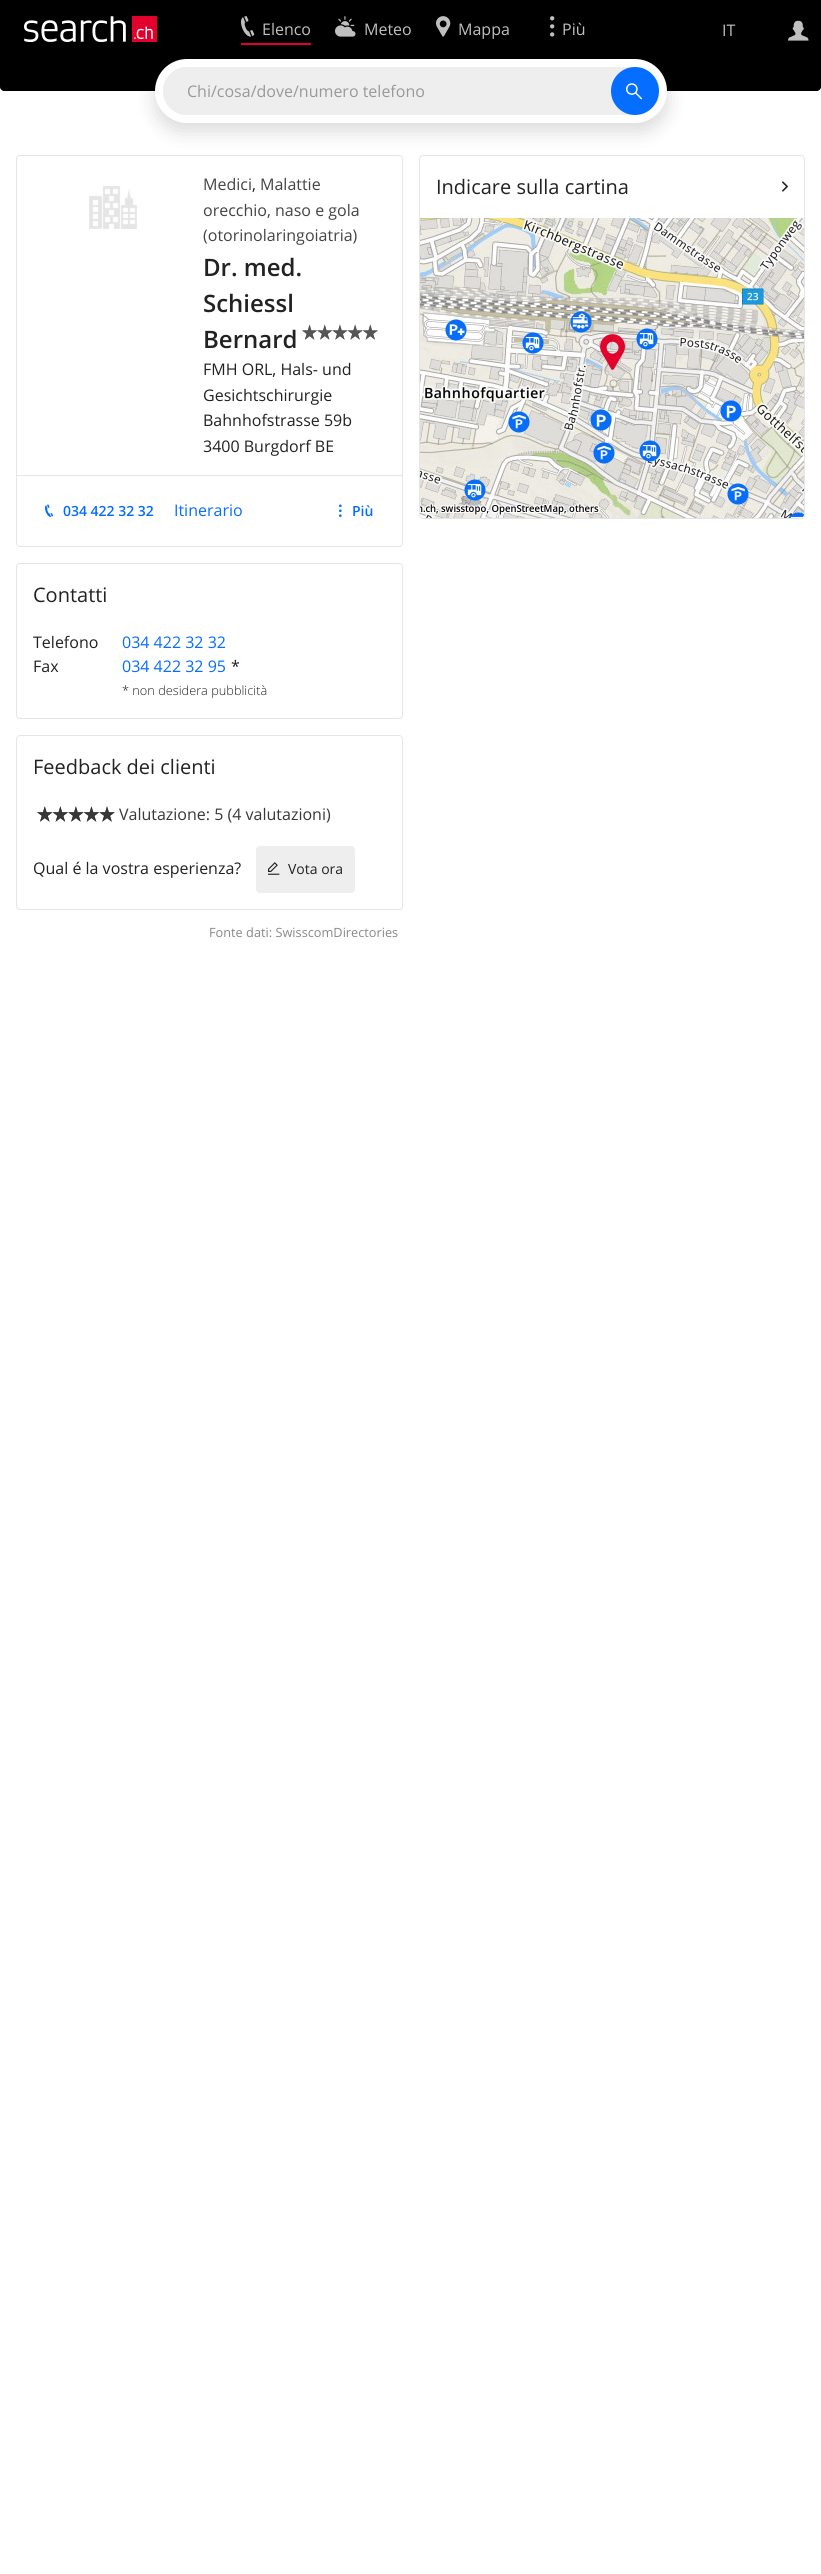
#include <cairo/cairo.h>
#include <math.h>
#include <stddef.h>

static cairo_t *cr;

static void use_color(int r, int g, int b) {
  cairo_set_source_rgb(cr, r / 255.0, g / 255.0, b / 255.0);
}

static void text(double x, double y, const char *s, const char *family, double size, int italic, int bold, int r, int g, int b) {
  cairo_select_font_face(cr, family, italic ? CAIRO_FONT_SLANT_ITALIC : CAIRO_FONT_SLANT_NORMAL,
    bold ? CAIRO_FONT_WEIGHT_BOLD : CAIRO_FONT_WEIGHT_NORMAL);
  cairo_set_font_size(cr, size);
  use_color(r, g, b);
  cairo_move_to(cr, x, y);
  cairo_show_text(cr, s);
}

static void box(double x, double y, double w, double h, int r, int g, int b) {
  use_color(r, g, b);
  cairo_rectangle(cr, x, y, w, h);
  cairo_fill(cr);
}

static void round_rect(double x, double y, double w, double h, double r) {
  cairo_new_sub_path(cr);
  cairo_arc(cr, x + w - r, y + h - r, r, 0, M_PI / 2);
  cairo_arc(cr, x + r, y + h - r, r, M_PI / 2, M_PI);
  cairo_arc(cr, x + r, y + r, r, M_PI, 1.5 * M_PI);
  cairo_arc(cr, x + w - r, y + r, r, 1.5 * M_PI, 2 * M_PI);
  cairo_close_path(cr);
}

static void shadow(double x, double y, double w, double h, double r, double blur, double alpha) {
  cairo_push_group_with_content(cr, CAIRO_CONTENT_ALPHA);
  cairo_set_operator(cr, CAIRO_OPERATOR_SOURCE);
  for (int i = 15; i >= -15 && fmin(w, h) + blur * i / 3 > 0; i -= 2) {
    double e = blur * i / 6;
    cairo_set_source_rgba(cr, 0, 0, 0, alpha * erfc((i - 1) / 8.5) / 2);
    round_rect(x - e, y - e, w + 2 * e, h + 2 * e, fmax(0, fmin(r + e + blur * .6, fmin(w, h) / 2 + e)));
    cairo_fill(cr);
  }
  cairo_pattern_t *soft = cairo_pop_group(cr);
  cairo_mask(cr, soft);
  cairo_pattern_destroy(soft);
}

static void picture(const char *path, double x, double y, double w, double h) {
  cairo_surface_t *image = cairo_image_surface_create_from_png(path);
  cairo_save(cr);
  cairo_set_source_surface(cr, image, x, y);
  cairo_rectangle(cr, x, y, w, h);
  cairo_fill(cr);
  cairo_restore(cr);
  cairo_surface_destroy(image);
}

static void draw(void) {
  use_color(255, 255, 255);
  cairo_paint(cr);
  box(0, 0, 821, 59, 0, 0, 0);
  picture("img_01.png", 24, 16, 133, 26);
  box(241, 43, 70, 2, 228, 0, 44);
  picture("img_02.png", 241, 16, 14, 21);
  picture("img_03.png", 335, 16, 21, 21);
  picture("img_04.png", 436, 16, 15, 21);
  picture("img_05.png", 550, 16, 5, 21);
  picture("img_06.png", 788, 20, 21, 21);
  use_color(0, 0, 0);
  cairo_new_path(cr);
  cairo_move_to(cr, 0, 59);
  cairo_line_to(cr, 821, 59);
  cairo_line_to(cr, 821, 87);
  cairo_curve_to(cr, 821, 89, 819, 91, 817, 91);
  cairo_line_to(cr, 4, 91);
  cairo_curve_to(cr, 2, 91, 0, 89, 0, 87);
  cairo_close_path(cr);
  cairo_fill(cr);
  round_rect(16.5, 155.5, 386, 391, 3.5);
  use_color(229, 229, 229);
  cairo_set_line_width(cr, 1);
  cairo_stroke(cr);
  round_rect(419.5, 155.5, 385, 363, 3.5);
  cairo_stroke(cr);
  use_color(0, 0, 0);
  shadow(155, 67, 512, 64, 32, 10, 0.15);
  use_color(255, 255, 255);
  round_rect(155, 59, 512, 64, 32);
  cairo_fill(cr);
  use_color(238, 238, 238);
  round_rect(163, 67, 496, 48, 24);
  cairo_fill(cr);
  round_rect(163, 67, 448, 48, 24);
  cairo_fill(cr);
  use_color(5, 109, 255);
  cairo_arc(cr, 635, 91, 24, 0, 2 * M_PI);
  cairo_fill(cr);
  picture("img_07.png", 626, 83, 16, 17);
  picture("img_08.png", 89, 186, 48, 43);
  picture("img_09.png", 302, 324, 76, 16);
  picture("img_10.png", 302, 324, 76, 16);
  box(17, 475, 385, 1, 230, 230, 230);
  picture("img_11.png", 45, 504, 8, 13);
  picture("img_12.png", 339, 504, 3, 13);
  round_rect(16.5, 563.5, 386, 155, 3.5);
  use_color(229, 229, 229);
  cairo_stroke(cr);
  round_rect(16.5, 735.5, 386, 174, 3.5);
  cairo_stroke(cr);
  picture("img_13.png", 37, 806, 78, 16);
  picture("img_14.png", 37, 806, 78, 16);
  use_color(238, 238, 238);
  round_rect(256, 846, 99, 47, 4);
  cairo_fill(cr);
  picture("img_15.png", 268, 862, 12, 13);
  picture("img_16.png", 782, 181, 6, 11);
  picture("img_17.png", 420, 218, 384, 300);
  text(262, 35, "Elenco", "Open Sans", 16, 0, 0, 191, 191, 191);
  text(364, 35, "Meteo", "Open Sans", 16, 0, 0, 191, 191, 191);
  text(458, 35, "Mappa", "Open Sans", 16, 0, 0, 191, 191, 191);
  text(562, 35, "Più", "Open Sans", 16, 0, 0, 191, 191, 191);
  text(722, 36, "IT", "Open Sans", 16, 0, 0, 191, 191, 191);
  text(187, 97, "Chi/cosa/dove/numero telefono", "Open Sans", 16, 0, 0, 153, 153, 153);
  text(203, 190, "Medici", "Open Sans", 16, 0, 0, 68, 68, 68);
  text(252, 190, ",", "Open Sans", 16, 0, 0, 34, 34, 34);
  text(260, 190, "Malattie", "Open Sans", 16, 0, 0, 68, 68, 68);
  text(203, 216, "orecchio, naso e gola", "Open Sans", 16, 0, 0, 68, 68, 68);
  text(203, 241, "(otorinolaringoiatria)", "Open Sans", 16, 0, 0, 68, 68, 68);
  text(203, 276, "Dr. med.", "Open Sans SemiBold", 24, 0, 0, 34, 34, 34);
  text(203, 312, "Schiessl", "Open Sans SemiBold", 24, 0, 0, 34, 34, 34);
  text(203, 348, "Bernard", "Open Sans SemiBold", 24, 0, 0, 34, 34, 34);
  text(203, 375, "FMH ORL, Hals- und", "Open Sans", 16, 0, 0, 34, 34, 34);
  text(203, 401, "Gesichtschirurgie", "Open Sans", 16, 0, 0, 34, 34, 34);
  text(203, 426, "Bahnhofstrasse 59b", "Open Sans", 16, 0, 0, 34, 34, 34);
  text(203, 452, "3400 Burgdorf BE", "Open Sans", 16, 0, 0, 34, 34, 34);
  text(63, 516, "034 422 32 32", "Open Sans SemiBold", 14, 0, 0, 5, 109, 255);
  text(174, 516, "Itinerario", "Open Sans", 16, 0, 0, 5, 109, 255);
  text(352, 516, "Più", "Open Sans SemiBold", 14, 0, 0, 5, 109, 255);
  text(33, 602, "Contatti", "Open Sans", 20, 0, 0, 34, 34, 34);
  text(33, 648, "Telefono", "Open Sans", 16, 0, 0, 34, 34, 34);
  text(122, 648, "034 422 32 32", "Open Sans", 16, 0, 0, 5, 109, 255);
  text(33, 672, "Fax", "Open Sans", 16, 0, 0, 34, 34, 34);
  text(122, 672, "034 422 32 95", "Open Sans", 16, 0, 0, 5, 109, 255);
  text(231, 672, "*", "Open Sans", 16, 0, 0, 34, 34, 34);
  text(122, 695, "* non desidera pubblicità", "Open Sans Light", 12.75, 0, 0, 34, 34, 34);
  text(33, 774, "Feedback dei clienti", "Open Sans", 20, 0, 0, 34, 34, 34);
  text(119, 820, "Valutazione: 5 (4 valutazioni)", "Open Sans", 16, 0, 0, 56, 56, 56);
  text(33, 874, "Qual é la vostra esperienza?", "Open Sans", 16, 0, 0, 34, 34, 34);
  text(288, 874, "Vota ora", "Open Sans", 14, 0, 0, 34, 34, 34);
  text(209, 937, "Fonte dati: SwisscomDirectories", "Open Sans", 12.75, 0, 0, 136, 136, 136);
  text(436, 194, "Indicare sulla cartina", "Open Sans", 20, 0, 0, 34, 34, 34);
}

int main(void) {
  cairo_surface_t *surface = cairo_image_surface_create(CAIRO_FORMAT_RGB24, 821, 2574);
  cr = cairo_create(surface);
  cairo_font_options_t *options = cairo_font_options_create();
  cairo_font_options_set_hint_metrics(options, CAIRO_HINT_METRICS_OFF);
  cairo_font_options_set_hint_style(options, CAIRO_HINT_STYLE_NONE);
  cairo_set_font_options(cr, options);
  cairo_set_miter_limit(cr, 4);
  draw();
  cairo_surface_write_to_png(surface, "out.png");
  cairo_font_options_destroy(options);
  cairo_destroy(cr);
  cairo_surface_destroy(surface);
  return 0;
}
